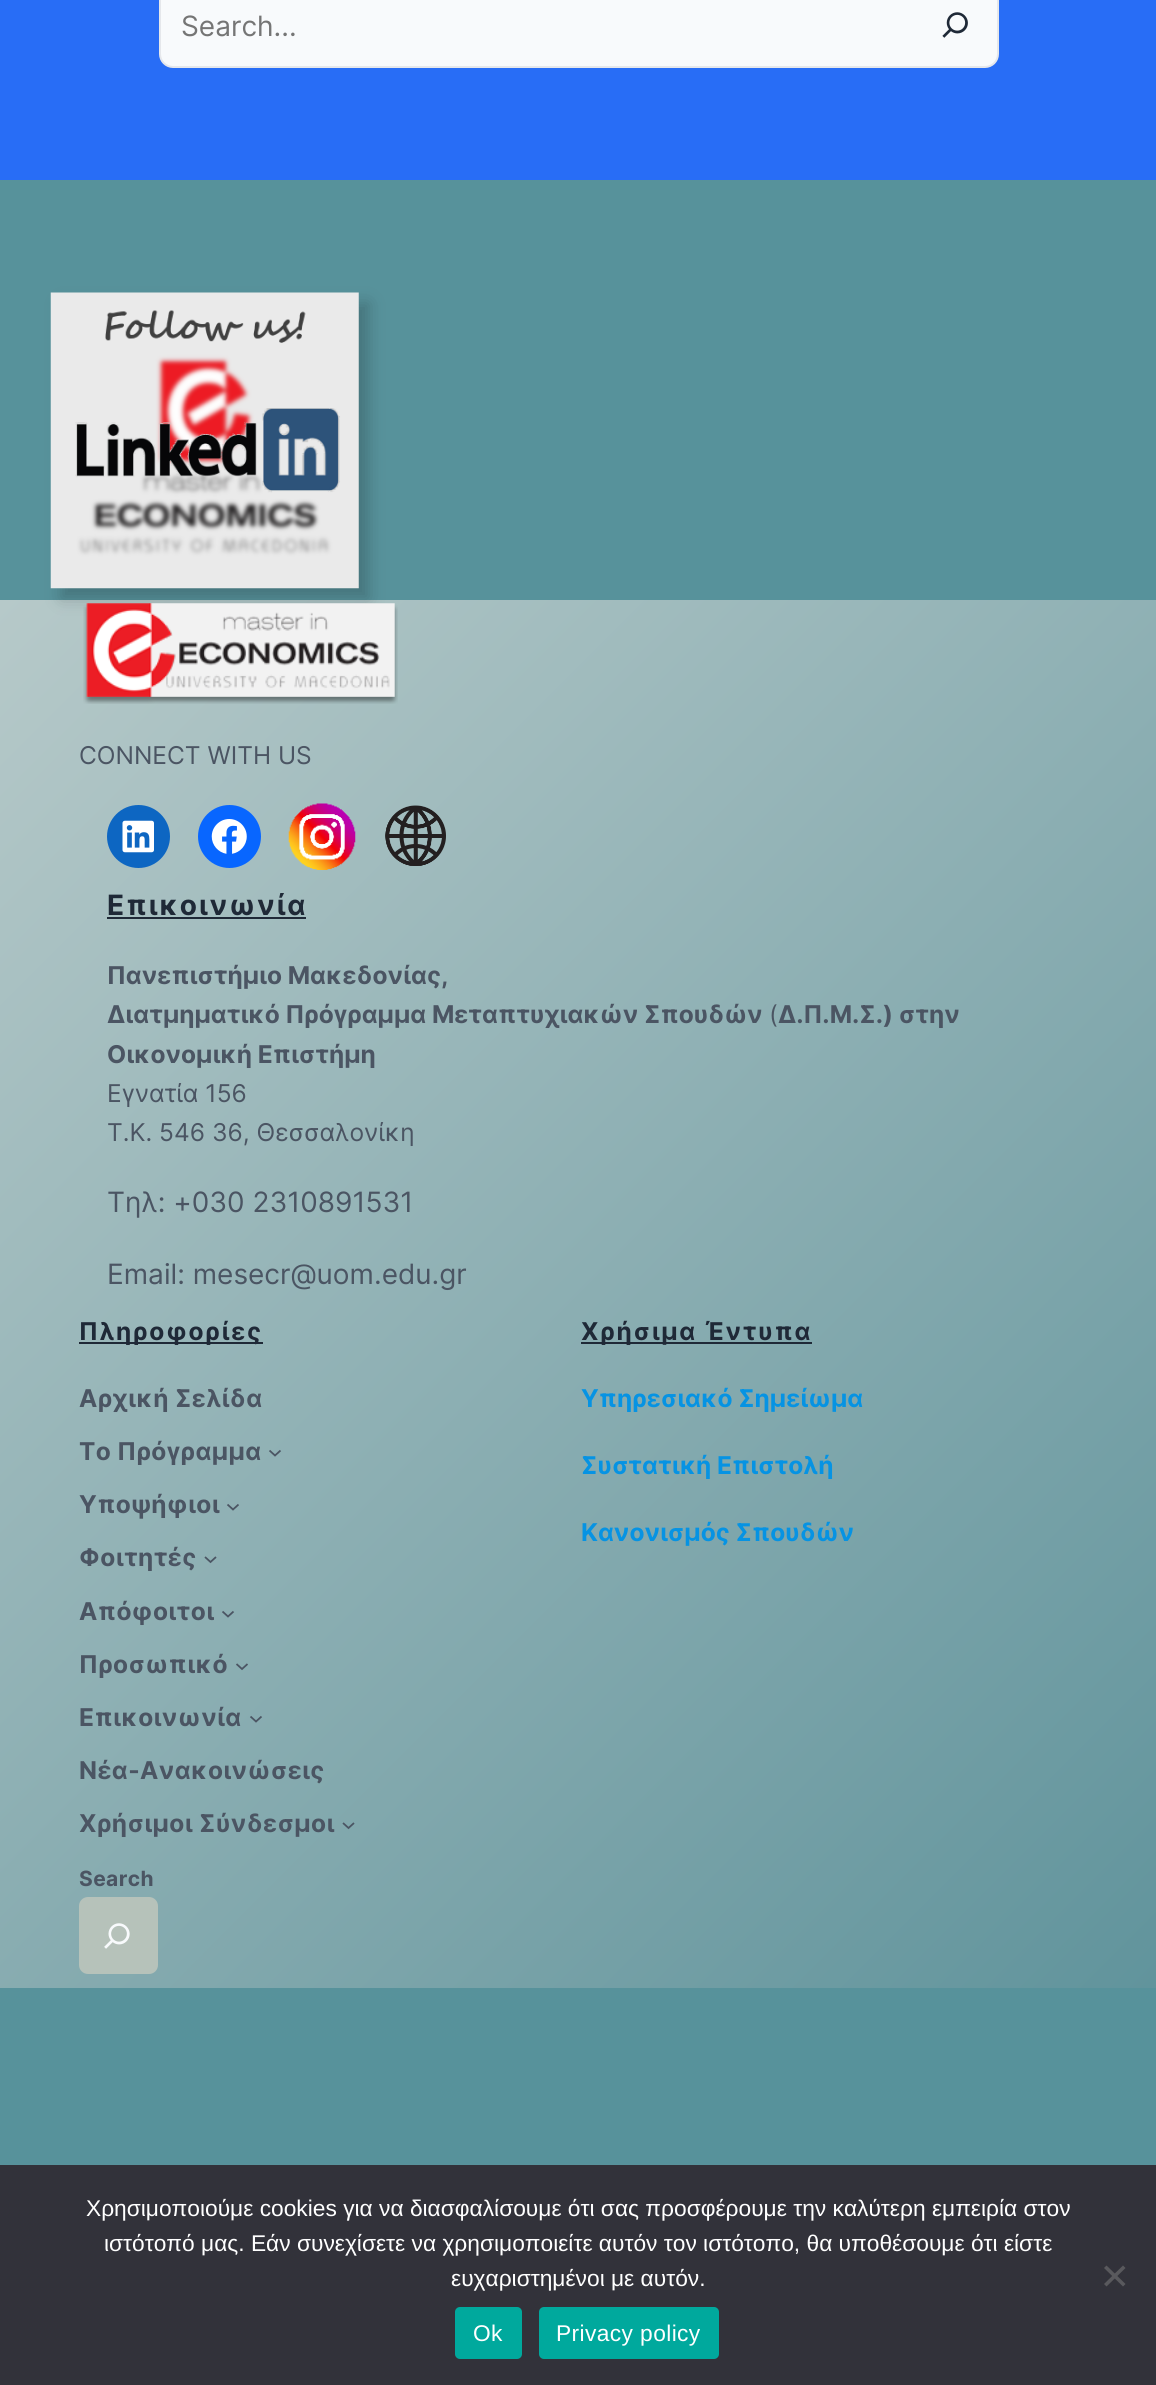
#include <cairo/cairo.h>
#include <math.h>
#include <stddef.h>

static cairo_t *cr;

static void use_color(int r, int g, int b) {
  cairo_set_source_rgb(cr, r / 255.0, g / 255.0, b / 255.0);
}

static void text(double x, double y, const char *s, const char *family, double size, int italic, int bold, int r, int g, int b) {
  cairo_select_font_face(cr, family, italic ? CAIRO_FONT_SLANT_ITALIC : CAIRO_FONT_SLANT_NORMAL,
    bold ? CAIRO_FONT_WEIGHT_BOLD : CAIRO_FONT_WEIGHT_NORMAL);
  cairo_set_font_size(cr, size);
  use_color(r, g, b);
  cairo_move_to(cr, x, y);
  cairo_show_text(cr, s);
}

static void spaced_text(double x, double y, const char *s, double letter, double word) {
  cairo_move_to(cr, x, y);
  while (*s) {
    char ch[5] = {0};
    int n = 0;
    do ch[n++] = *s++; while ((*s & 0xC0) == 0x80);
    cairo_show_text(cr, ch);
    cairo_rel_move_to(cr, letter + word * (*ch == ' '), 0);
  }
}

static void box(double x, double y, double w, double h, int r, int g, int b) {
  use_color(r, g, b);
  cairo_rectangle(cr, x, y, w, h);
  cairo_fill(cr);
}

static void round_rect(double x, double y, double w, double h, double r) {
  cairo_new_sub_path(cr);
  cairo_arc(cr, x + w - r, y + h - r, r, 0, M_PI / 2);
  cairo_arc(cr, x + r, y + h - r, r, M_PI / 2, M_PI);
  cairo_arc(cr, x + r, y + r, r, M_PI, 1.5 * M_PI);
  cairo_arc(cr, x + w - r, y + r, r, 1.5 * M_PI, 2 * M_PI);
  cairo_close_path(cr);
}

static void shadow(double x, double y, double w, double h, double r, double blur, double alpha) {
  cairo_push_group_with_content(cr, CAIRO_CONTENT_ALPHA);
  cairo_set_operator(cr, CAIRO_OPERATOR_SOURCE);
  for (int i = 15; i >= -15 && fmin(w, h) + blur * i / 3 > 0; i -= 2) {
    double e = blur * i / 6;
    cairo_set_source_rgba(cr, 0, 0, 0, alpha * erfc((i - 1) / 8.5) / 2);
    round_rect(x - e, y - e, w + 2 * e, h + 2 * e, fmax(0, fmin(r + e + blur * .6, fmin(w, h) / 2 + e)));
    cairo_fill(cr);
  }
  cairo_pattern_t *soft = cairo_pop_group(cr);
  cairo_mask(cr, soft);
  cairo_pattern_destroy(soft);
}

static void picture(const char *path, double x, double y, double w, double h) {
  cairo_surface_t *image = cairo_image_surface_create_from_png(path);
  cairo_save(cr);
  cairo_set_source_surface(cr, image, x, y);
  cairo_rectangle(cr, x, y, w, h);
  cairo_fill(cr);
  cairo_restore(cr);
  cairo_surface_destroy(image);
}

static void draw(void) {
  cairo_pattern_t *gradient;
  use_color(87, 146, 155);
  cairo_paint(cr);
  box(0, 0, 1156, 180, 40, 109, 246);
  use_color(248, 250, 252);
  round_rect(160, -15, 838, 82, 13);
  cairo_fill_preserve(cr);
  use_color(229, 231, 235);
  cairo_stroke(cr);
  picture("img_01.png", 942, 12, 26, 26);
  gradient = cairo_pattern_create_linear(-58, 658, 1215, 1930);
  cairo_pattern_add_color_stop_rgba(gradient, 0, 0.714, 0.788, 0.788, 1);
  cairo_pattern_add_color_stop_rgba(gradient, 1, 0.38, 0.58, 0.612, 1);
  cairo_set_source(cr, gradient);
  cairo_pattern_destroy(gradient);
  cairo_rectangle(cr, 0, 600, 1156, 1388);
  cairo_fill(cr);
  use_color(0, 0, 0);
  shadow(61, 303, 308, 296, 0, 8, 0.2);
  picture("img_02.png", 50, 292, 309, 297);
  picture("img_03.png", 83, 603, 315, 101);
  use_color(13, 102, 194);
  cairo_arc(cr, 138.5, 836.5, 31.5, 0, 2 * M_PI);
  cairo_fill(cr);
  picture("img_04.png", 122, 820, 32, 33);
  use_color(8, 102, 255);
  cairo_arc(cr, 229.5, 836.5, 31.5, 0, 2 * M_PI);
  cairo_fill(cr);
  picture("img_05.png", 211, 819, 36, 35);
  picture("img_06.png", 288, 803, 68, 67);
  picture("img_07.png", 385, 805, 61, 61);
  box(107, 917, 199, 2, 31, 41, 55);
  box(79, 1342, 184, 2, 31, 41, 55);
  cairo_new_path(cr);
  cairo_move_to(cr, 269.5, 1450.5);
  cairo_line_to(cr, 275, 1455.5);
  cairo_line_to(cr, 280.5, 1450.5);
  cairo_move_to(cr, 227.5, 1504.5);
  cairo_line_to(cr, 233, 1509.5);
  cairo_line_to(cr, 238.5, 1504.5);
  use_color(75, 85, 99);
  cairo_set_line_width(cr, 1.8);
  cairo_stroke(cr);
  cairo_new_path(cr);
  cairo_move_to(cr, 205, 1557);
  cairo_line_to(cr, 210.5, 1562);
  cairo_line_to(cr, 216, 1557);
  cairo_move_to(cr, 222.5, 1611.5);
  cairo_line_to(cr, 228, 1616.5);
  cairo_line_to(cr, 233.5, 1611.5);
  cairo_stroke(cr);
  cairo_new_path(cr);
  cairo_move_to(cr, 236.5, 1664);
  cairo_line_to(cr, 242, 1669);
  cairo_line_to(cr, 247.5, 1664);
  cairo_move_to(cr, 250.5, 1716.5);
  cairo_line_to(cr, 256, 1721.5);
  cairo_line_to(cr, 261.5, 1716.5);
  cairo_stroke(cr);
  cairo_new_path(cr);
  cairo_move_to(cr, 343, 1823);
  cairo_line_to(cr, 348.5, 1828);
  cairo_line_to(cr, 354, 1823);
  cairo_stroke(cr);
  use_color(182, 194, 186);
  round_rect(79, 1897, 79, 77, 9);
  cairo_fill(cr);
  picture("img_08.png", 104, 1923, 26, 26);
  box(581, 1342, 231, 2, 31, 41, 55);
  box(0, 2165, 1156, 220, 50, 50, 58);
  use_color(89, 89, 93);
  cairo_new_path(cr);
  cairo_move_to(cr, 1123, 2265.5);
  cairo_line_to(cr, 1125.5, 2268);
  cairo_line_to(cr, 1106.5, 2286.5);
  cairo_line_to(cr, 1104, 2284);
  cairo_close_path(cr);
  cairo_fill(cr);
  cairo_new_path(cr);
  cairo_move_to(cr, 1104, 2268);
  cairo_line_to(cr, 1106.5, 2265.5);
  cairo_line_to(cr, 1125.5, 2284);
  cairo_line_to(cr, 1123, 2286.5);
  cairo_close_path(cr);
  cairo_fill(cr);
  use_color(0, 169, 157);
  round_rect(455, 2307, 67, 52, 5);
  cairo_fill(cr);
  round_rect(539, 2307, 180, 52, 5);
  cairo_fill(cr);
  text(181, 36, "Search...", "Inter", 28, 0, 0, 117, 117, 117);
  text(79, 764, "CONNECT WITH US", "Inter", 24.5, 0, 0, 75, 85, 99);
  cairo_select_font_face(cr, "Inter", CAIRO_FONT_SLANT_NORMAL, CAIRO_FONT_WEIGHT_BOLD);
  cairo_set_font_size(cr, 28);
  use_color(31, 41, 55);
  spaced_text(107, 915, "Επικοινωνία", 1.75, 0);
  text(107, 984, "Πανεπιστήμιο Μακεδονίας,", "Inter", 24.5, 0, 1, 75, 85, 99);
  text(107, 1023, "Διατμηματικό Πρόγραμμα Μεταπτυχιακών Σπουδών", "Inter", 24.5, 0, 1, 75, 85, 99);
  text(769, 1023, "(", "Inter", 24.5, 0, 0, 75, 85, 99);
  text(778, 1023, "Δ.Π.Μ.Σ.) στην", "Inter", 24.5, 0, 1, 75, 85, 99);
  text(107, 1063, "Οικονομική Επιστήμη", "Inter", 24.5, 0, 1, 75, 85, 99);
  text(107, 1102, "Εγνατία 156", "Inter", 24.5, 0, 0, 75, 85, 99);
  text(107, 1141, "Τ.Κ. 546 36, Θεσσαλονίκη", "Inter", 24.5, 0, 0, 75, 85, 99);
  text(107, 1212, "Τηλ: +030 2310891531", "Inter", 28, 0, 0, 75, 85, 99);
  text(107, 1284, "Email: mesecr@uom.edu.gr", "Inter", 28, 0, 0, 75, 85, 99);
  cairo_select_font_face(cr, "Inter", CAIRO_FONT_SLANT_NORMAL, CAIRO_FONT_WEIGHT_BOLD);
  cairo_set_font_size(cr, 24.5);
  use_color(31, 41, 55);
  spaced_text(79, 1340, "Πληροφορίες", 1.75, 0);
  use_color(75, 85, 99);
  spaced_text(79, 1407, "Αρχική Σελίδα", 0.4, 0);
  spaced_text(79, 1460, "Το Πρόγραμμα", 0.4, 0);
  spaced_text(79, 1513, "Υποψήφιοι", 0.4, 0);
  spaced_text(79, 1566, "Φοιτητές", 0.4, 0);
  spaced_text(79, 1620, "Απόφοιτοι", 0.4, 0);
  spaced_text(79, 1673, "Προσωπικό", 0.4, 0);
  spaced_text(79, 1726, "Επικοινωνία", 0.4, 0);
  spaced_text(79, 1779, "Νέα-Ανακοινώσεις", 0.4, 0);
  spaced_text(79, 1832, "Χρήσιμοι Σύνδεσμοι", 0.4, 0);
  cairo_set_font_size(cr, 21);
  spaced_text(79, 1886, "Search", 0.4, 0);
  cairo_set_font_size(cr, 24.5);
  use_color(31, 41, 55);
  spaced_text(581, 1340, "Χρήσιμα Έντυπα", 1.75, 0);
  text(581, 1407, "Υπηρεσιακό Σημείωμα", "Inter", 24.5, 0, 1, 6, 147, 227);
  text(581, 1474, "Συστατική Επιστολή", "Inter", 24.5, 0, 1, 6, 147, 227);
  text(581, 1541, "Κανονισμός Σπουδών", "Inter", 24.5, 0, 1, 6, 147, 227);
  text(86, 2216, "Χρησιμοποιούμε cookies για να διασφαλίσουμε ότι σας προσφέρουμε την καλύτερη εμπειρία στον", "Liberation Sans", 22.75, 0, 0, 255, 255, 255);
  text(104, 2251, "ιστότοπό μας. Εάν συνεχίσετε να χρησιμοποιείτε αυτόν τον ιστότοπο, θα υποθέσουμε ότι είστε", "Liberation Sans", 22.75, 0, 0, 255, 255, 255);
  text(451, 2286, "ευχαριστημένοι με αυτόν.", "Liberation Sans", 22.75, 0, 0, 255, 255, 255);
  spaced_text(473, 2341, "Ok", 0.4, 0);
  spaced_text(556, 2341, "Privacy policy", 0.4, 0);
}

int main(void) {
  cairo_surface_t *surface = cairo_image_surface_create(CAIRO_FORMAT_RGB24, 1156, 2385);
  cr = cairo_create(surface);
  cairo_font_options_t *options = cairo_font_options_create();
  cairo_font_options_set_hint_metrics(options, CAIRO_HINT_METRICS_OFF);
  cairo_font_options_set_hint_style(options, CAIRO_HINT_STYLE_NONE);
  cairo_set_font_options(cr, options);
  cairo_set_miter_limit(cr, 4);
  draw();
  cairo_surface_write_to_png(surface, "out.png");
  cairo_font_options_destroy(options);
  cairo_destroy(cr);
  cairo_surface_destroy(surface);
  return 0;
}
